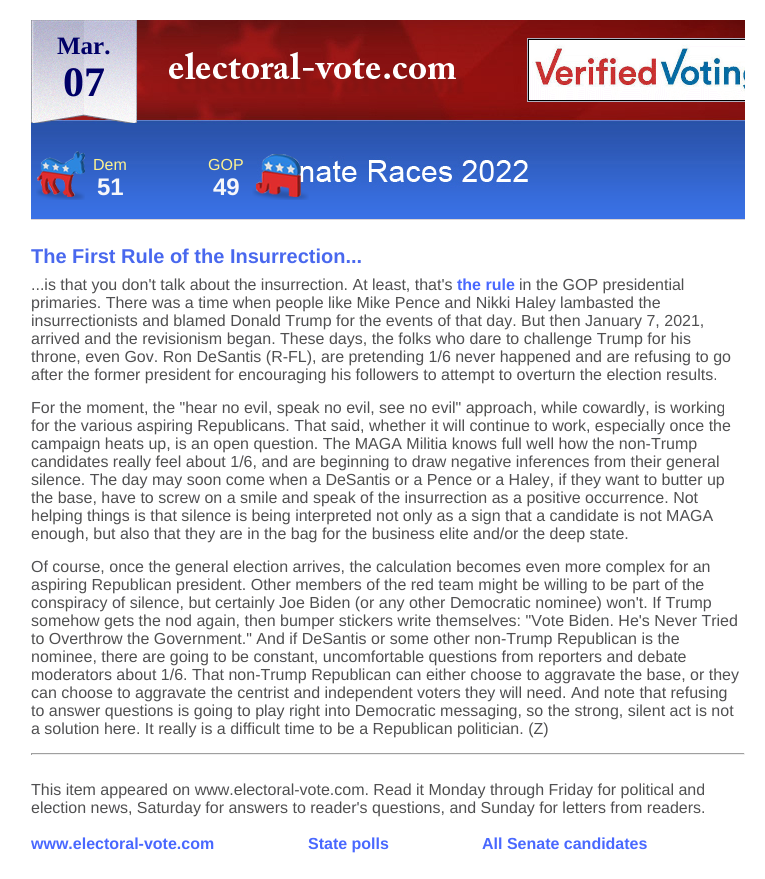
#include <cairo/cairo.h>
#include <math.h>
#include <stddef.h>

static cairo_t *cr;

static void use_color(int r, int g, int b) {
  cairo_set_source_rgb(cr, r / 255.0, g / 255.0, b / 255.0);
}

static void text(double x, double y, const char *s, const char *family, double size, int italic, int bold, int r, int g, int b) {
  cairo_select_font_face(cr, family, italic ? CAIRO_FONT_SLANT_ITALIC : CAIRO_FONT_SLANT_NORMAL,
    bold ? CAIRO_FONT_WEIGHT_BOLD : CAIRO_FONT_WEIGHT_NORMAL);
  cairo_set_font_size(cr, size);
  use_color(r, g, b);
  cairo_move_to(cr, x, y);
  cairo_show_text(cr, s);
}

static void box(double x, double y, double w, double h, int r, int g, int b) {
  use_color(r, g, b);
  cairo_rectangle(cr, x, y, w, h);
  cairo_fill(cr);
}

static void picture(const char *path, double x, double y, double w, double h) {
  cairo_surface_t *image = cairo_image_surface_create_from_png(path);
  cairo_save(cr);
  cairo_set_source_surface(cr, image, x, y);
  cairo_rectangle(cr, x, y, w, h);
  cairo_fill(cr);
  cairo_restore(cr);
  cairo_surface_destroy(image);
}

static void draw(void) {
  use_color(255, 255, 255);
  cairo_paint(cr);
  picture("img_01.png", 31, 188, 714, 32);
  picture("img_02.png", 31, 20, 714, 168);
  picture("img_03.png", 31, 20, 106, 103);
  picture("img_04.png", 169, 52, 295, 43);
  cairo_save(cr);
  cairo_rectangle(cr, 31, 20, 714, 200);
  cairo_clip(cr);
  cairo_rectangle(cr, 527.5, 38.5, 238, 63);
  use_color(176, 173, 188);
  cairo_set_line_width(cr, 1);
  cairo_stroke(cr);
  cairo_restore(cr);
  picture("img_05.png", 528, 39, 217, 62);
  picture("img_06.png", 36, 151, 49, 49);
  picture("img_07.png", 252, 154, 57, 46);
  box(31, 753, 714, 1, 159, 159, 159);
  box(744, 753, 1, 2, 238, 238, 238);
  box(31, 754, 714, 1, 238, 238, 238);
  box(31, 753, 1, 2, 159, 159, 159);
  text(57, 54, "Mar.", "Liberation Serif", 25, 0, 1, 0, 0, 102);
  text(63, 96, "07", "Liberation Serif", 42, 0, 1, 0, 0, 102);
  text(93, 170, "Dem", "Liberation Sans", 16, 0, 0, 254, 242, 144);
  text(97, 195, "51", "Liberation Sans", 24, 0, 1, 246, 247, 250);
  text(208, 170, "GOP", "Liberation Sans", 16, 0, 0, 254, 242, 144);
  text(213, 195, "49", "Liberation Sans", 24, 0, 1, 246, 247, 250);
  text(31, 263, "The First Rule of the Insurrection...", "Liberation Sans", 20, 0, 1, 73, 104, 238);
  text(31, 290, "...is that you don't talk about the insurrection. At least, that's", "Liberation Sans", 16, 0, 0, 80, 80, 81);
  text(457, 290, "the rule", "Liberation Sans", 16, 0, 1, 73, 104, 255);
  text(519, 290, "in the GOP presidential", "Liberation Sans", 16, 0, 0, 80, 80, 81);
  text(31, 308, "primaries. There was a time when people like Mike Pence and Nikki Haley lambasted the", "Liberation Sans", 16, 0, 0, 80, 80, 81);
  text(31, 326, "insurrectionists and blamed Donald Trump for the events of that day. But then January 7, 2021,", "Liberation Sans", 16, 0, 0, 80, 80, 81);
  text(31, 344, "arrived and the revisionism began. These days, the folks who dare to challenge Trump for his", "Liberation Sans", 16, 0, 0, 80, 80, 81);
  text(31, 362, "throne, even Gov. Ron DeSantis (R-FL), are pretending 1/6 never happened and are refusing to go", "Liberation Sans", 16, 0, 0, 80, 80, 81);
  text(31, 380, "after the former president for encouraging his followers to attempt to overturn the election results.", "Liberation Sans", 16, 0, 0, 80, 80, 81);
  text(31, 413, "For the moment, the \"hear no evil, speak no evil, see no evil\" approach, while cowardly, is working", "Liberation Sans", 16, 0, 0, 80, 80, 81);
  text(31, 431, "for the various aspiring Republicans. That said, whether it will continue to work, especially once the", "Liberation Sans", 16, 0, 0, 80, 80, 81);
  text(31, 449, "campaign heats up, is an open question. The MAGA Militia knows full well how the non-Trump", "Liberation Sans", 16, 0, 0, 80, 80, 81);
  text(31, 467, "candidates really feel about 1/6, and are beginning to draw negative inferences from their general", "Liberation Sans", 16, 0, 0, 80, 80, 81);
  text(31, 485, "silence. The day may soon come when a DeSantis or a Pence or a Haley, if they want to butter up", "Liberation Sans", 16, 0, 0, 80, 80, 81);
  text(31, 503, "the base, have to screw on a smile and speak of the insurrection as a positive occurrence. Not", "Liberation Sans", 16, 0, 0, 80, 80, 81);
  text(31, 521, "helping things is that silence is being interpreted not only as a sign that a candidate is not MAGA", "Liberation Sans", 16, 0, 0, 80, 80, 81);
  text(31, 539, "enough, but also that they are in the bag for the business elite and/or the deep state.", "Liberation Sans", 16, 0, 0, 80, 80, 81);
  text(31, 572, "Of course, once the general election arrives, the calculation becomes even more complex for an", "Liberation Sans", 16, 0, 0, 80, 80, 81);
  text(31, 590, "aspiring Republican president. Other members of the red team might be willing to be part of the", "Liberation Sans", 16, 0, 0, 80, 80, 81);
  text(31, 608, "conspiracy of silence, but certainly Joe Biden (or any other Democratic nominee) won't. If Trump", "Liberation Sans", 16, 0, 0, 80, 80, 81);
  text(31, 626, "somehow gets the nod again, then bumper stickers write themselves: \"Vote Biden. He's Never Tried", "Liberation Sans", 16, 0, 0, 80, 80, 81);
  text(31, 644, "to Overthrow the Government.\" And if DeSantis or some other non-Trump Republican is the", "Liberation Sans", 16, 0, 0, 80, 80, 81);
  text(31, 662, "nominee, there are going to be constant, uncomfortable questions from reporters and debate", "Liberation Sans", 16, 0, 0, 80, 80, 81);
  text(31, 680, "moderators about 1/6. That non-Trump Republican can either choose to aggravate the base, or they", "Liberation Sans", 16, 0, 0, 80, 80, 81);
  text(31, 698, "can choose to aggravate the centrist and independent voters they will need. And note that refusing", "Liberation Sans", 16, 0, 0, 80, 80, 81);
  text(31, 716, "to answer questions is going to play right into Democratic messaging, so the strong, silent act is not", "Liberation Sans", 16, 0, 0, 80, 80, 81);
  text(31, 734, "a solution here. It really is a difficult time to be a Republican politician. (Z)", "Liberation Sans", 16, 0, 0, 80, 80, 81);
  text(31, 795, "This item appeared on www.electoral-vote.com. Read it Monday through Friday for political and", "Liberation Sans", 16, 0, 0, 80, 80, 81);
  text(31, 813, "election news, Saturday for answers to reader's questions, and Sunday for letters from readers.", "Liberation Sans", 16, 0, 0, 80, 80, 81);
  text(31, 849, "www.electoral-vote.com", "Liberation Sans", 16, 0, 1, 73, 104, 255);
  text(308, 849, "State polls", "Liberation Sans", 16, 0, 1, 73, 104, 255);
  text(482, 849, "All Senate candidates", "Liberation Sans", 16, 0, 1, 73, 104, 255);
}

int main(void) {
  cairo_surface_t *surface = cairo_image_surface_create(CAIRO_FORMAT_RGB24, 765, 879);
  cr = cairo_create(surface);
  cairo_font_options_t *options = cairo_font_options_create();
  cairo_font_options_set_hint_metrics(options, CAIRO_HINT_METRICS_OFF);
  cairo_font_options_set_hint_style(options, CAIRO_HINT_STYLE_NONE);
  cairo_set_font_options(cr, options);
  cairo_set_miter_limit(cr, 4);
  draw();
  cairo_surface_write_to_png(surface, "out.png");
  cairo_font_options_destroy(options);
  cairo_destroy(cr);
  cairo_surface_destroy(surface);
  return 0;
}
